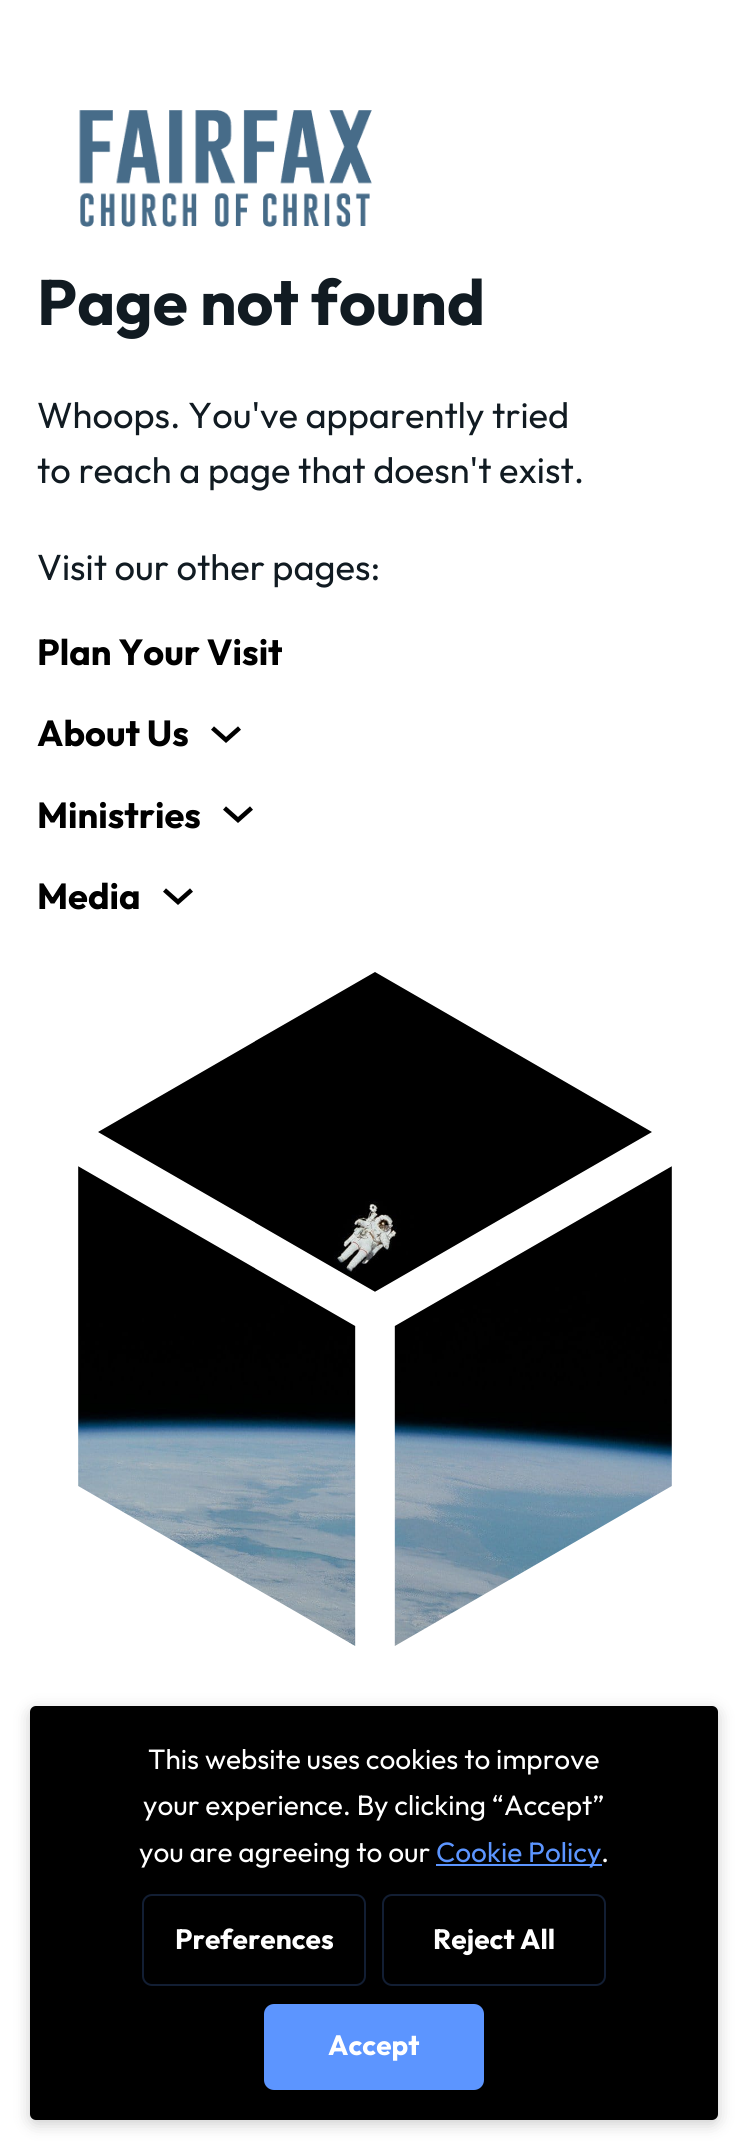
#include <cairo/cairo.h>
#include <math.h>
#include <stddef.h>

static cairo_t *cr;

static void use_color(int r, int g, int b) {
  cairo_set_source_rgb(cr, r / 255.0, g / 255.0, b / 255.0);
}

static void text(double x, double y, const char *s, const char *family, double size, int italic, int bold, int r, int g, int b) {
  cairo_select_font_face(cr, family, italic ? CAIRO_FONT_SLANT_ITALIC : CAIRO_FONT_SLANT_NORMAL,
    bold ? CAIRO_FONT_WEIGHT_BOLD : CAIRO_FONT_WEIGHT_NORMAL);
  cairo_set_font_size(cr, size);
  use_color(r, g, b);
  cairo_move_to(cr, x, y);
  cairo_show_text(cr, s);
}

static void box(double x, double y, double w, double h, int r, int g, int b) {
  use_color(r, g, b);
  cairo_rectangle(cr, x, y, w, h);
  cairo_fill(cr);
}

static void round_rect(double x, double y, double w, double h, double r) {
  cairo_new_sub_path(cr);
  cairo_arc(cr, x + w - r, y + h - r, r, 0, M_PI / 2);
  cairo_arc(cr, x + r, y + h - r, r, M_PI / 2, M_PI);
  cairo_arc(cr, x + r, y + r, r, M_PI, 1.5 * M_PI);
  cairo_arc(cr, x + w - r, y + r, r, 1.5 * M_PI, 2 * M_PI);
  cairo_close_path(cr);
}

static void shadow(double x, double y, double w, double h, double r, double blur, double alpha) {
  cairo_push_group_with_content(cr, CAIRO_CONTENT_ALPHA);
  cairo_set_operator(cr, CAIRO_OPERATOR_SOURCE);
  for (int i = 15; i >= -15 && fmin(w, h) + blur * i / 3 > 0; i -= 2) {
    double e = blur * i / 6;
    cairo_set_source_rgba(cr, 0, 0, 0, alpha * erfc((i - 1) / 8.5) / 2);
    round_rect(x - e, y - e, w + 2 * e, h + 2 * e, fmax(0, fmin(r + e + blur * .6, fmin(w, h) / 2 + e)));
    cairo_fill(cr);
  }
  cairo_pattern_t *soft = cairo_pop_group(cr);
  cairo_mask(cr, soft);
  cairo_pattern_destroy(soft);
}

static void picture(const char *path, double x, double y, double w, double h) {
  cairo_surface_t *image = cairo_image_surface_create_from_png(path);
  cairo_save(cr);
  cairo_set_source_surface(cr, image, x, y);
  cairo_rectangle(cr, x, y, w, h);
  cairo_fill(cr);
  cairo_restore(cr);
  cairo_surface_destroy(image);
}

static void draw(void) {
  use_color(255, 255, 255);
  cairo_paint(cr);
  picture("img_01.png", 79, 110, 293, 117);
  cairo_new_path(cr);
  cairo_move_to(cr, 212.5, 728);
  cairo_line_to(cr, 226, 740);
  cairo_line_to(cr, 239.5, 728);
  use_color(0, 0, 0);
  cairo_set_line_width(cr, 4.5);
  cairo_stroke(cr);
  cairo_new_path(cr);
  cairo_move_to(cr, 224.5, 808);
  cairo_line_to(cr, 238, 820);
  cairo_line_to(cr, 251.5, 808);
  cairo_stroke(cr);
  cairo_new_path(cr);
  cairo_move_to(cr, 164.5, 890);
  cairo_line_to(cr, 178, 902);
  cairo_line_to(cr, 191.5, 890);
  cairo_stroke(cr);
  picture("img_02.png", 78, 972, 594, 674);
  use_color(0, 0, 0);
  shadow(30, 1710, 688, 414, 6, 8, 0.2);
  use_color(0, 0, 0);
  round_rect(30, 1706, 688, 414, 6);
  cairo_fill(cr);
  box(436, 1864, 166, 2, 92, 149, 255);
  round_rect(143, 1895, 222, 90, 9);
  use_color(18, 30, 51);
  cairo_set_line_width(cr, 2);
  cairo_stroke(cr);
  round_rect(383, 1895, 222, 90, 9);
  cairo_stroke(cr);
  use_color(92, 149, 255);
  round_rect(264, 2004, 220, 86, 10);
  cairo_fill(cr);
  text(37, 325, "Page not found", "Outfit Thin", 64, 0, 0, 17, 27, 34);
  text(37, 428, "Whoops. You've apparently tried", "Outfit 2 Thin", 36.25, 0, 0, 17, 27, 34);
  text(37, 483, "to reach a page that doesn't exist.", "Outfit 2 Thin", 36.25, 0, 0, 17, 27, 34);
  text(37, 580, "Visit our other pages:", "Outfit 2 Thin", 36.25, 0, 0, 17, 27, 34);
  text(37, 665, "Plan Your Visit", "Outfit Thin", 36.25, 0, 0, 0, 0, 0);
  text(37, 746, "About Us", "Outfit Thin", 36.25, 0, 0, 0, 0, 0);
  text(37, 828, "Ministries", "Outfit Thin", 36.25, 0, 0, 0, 0, 0);
  text(37, 909, "Media", "Outfit Thin", 36.25, 0, 0, 0, 0, 0);
  text(148, 1769, "This website uses cookies to improve", "Outfit 2 Thin", 28, 0, 0, 255, 255, 255);
  text(143, 1815, "your experience. By clicking “Accept”", "Outfit 2 Thin", 28, 0, 0, 255, 255, 255);
  text(139, 1862, "you are agreeing to our", "Outfit 2 Thin", 28, 0, 0, 255, 255, 255);
  text(436, 1862, "Cookie Policy", "Outfit 2 Thin", 28, 0, 0, 92, 149, 255);
  text(601, 1862, ".", "Outfit 2 Thin", 28, 0, 0, 255, 255, 255);
  text(175, 1949, "Preferences", "Outfit Thin", 28, 0, 0, 255, 255, 255);
  text(433, 1949, "Reject All", "Outfit Thin", 28, 0, 0, 255, 255, 255);
  text(328, 2055, "Accept", "Outfit Thin", 28, 0, 0, 255, 255, 255);
}

int main(void) {
  cairo_surface_t *surface = cairo_image_surface_create(CAIRO_FORMAT_RGB24, 747, 2149);
  cr = cairo_create(surface);
  cairo_font_options_t *options = cairo_font_options_create();
  cairo_font_options_set_hint_metrics(options, CAIRO_HINT_METRICS_OFF);
  cairo_font_options_set_hint_style(options, CAIRO_HINT_STYLE_NONE);
  cairo_set_font_options(cr, options);
  cairo_set_miter_limit(cr, 4);
  draw();
  cairo_surface_write_to_png(surface, "out.png");
  cairo_font_options_destroy(options);
  cairo_destroy(cr);
  cairo_surface_destroy(surface);
  return 0;
}
